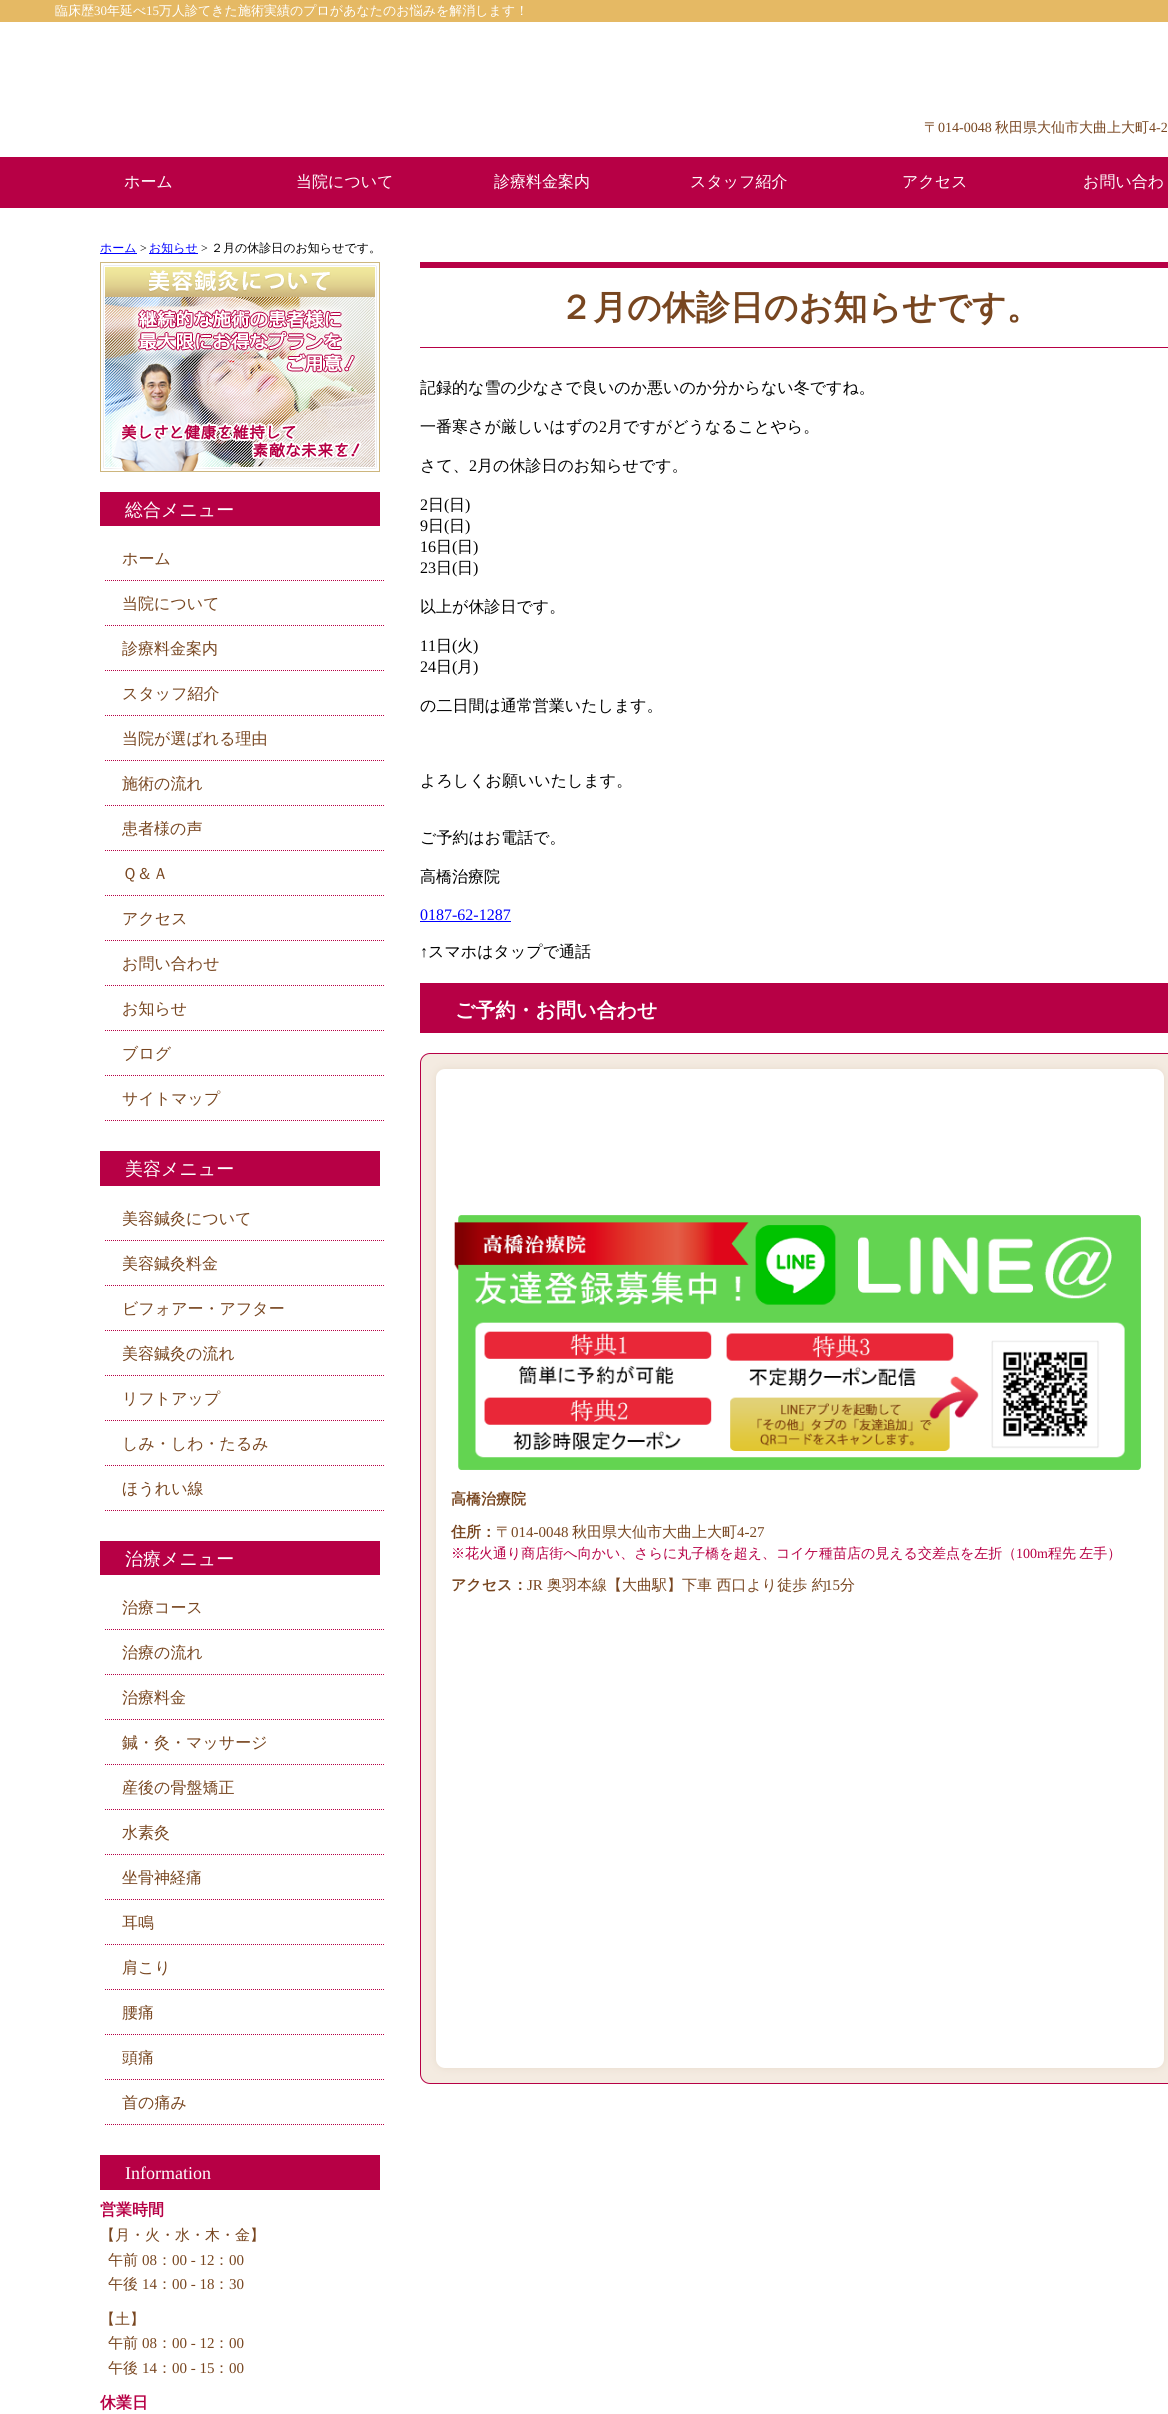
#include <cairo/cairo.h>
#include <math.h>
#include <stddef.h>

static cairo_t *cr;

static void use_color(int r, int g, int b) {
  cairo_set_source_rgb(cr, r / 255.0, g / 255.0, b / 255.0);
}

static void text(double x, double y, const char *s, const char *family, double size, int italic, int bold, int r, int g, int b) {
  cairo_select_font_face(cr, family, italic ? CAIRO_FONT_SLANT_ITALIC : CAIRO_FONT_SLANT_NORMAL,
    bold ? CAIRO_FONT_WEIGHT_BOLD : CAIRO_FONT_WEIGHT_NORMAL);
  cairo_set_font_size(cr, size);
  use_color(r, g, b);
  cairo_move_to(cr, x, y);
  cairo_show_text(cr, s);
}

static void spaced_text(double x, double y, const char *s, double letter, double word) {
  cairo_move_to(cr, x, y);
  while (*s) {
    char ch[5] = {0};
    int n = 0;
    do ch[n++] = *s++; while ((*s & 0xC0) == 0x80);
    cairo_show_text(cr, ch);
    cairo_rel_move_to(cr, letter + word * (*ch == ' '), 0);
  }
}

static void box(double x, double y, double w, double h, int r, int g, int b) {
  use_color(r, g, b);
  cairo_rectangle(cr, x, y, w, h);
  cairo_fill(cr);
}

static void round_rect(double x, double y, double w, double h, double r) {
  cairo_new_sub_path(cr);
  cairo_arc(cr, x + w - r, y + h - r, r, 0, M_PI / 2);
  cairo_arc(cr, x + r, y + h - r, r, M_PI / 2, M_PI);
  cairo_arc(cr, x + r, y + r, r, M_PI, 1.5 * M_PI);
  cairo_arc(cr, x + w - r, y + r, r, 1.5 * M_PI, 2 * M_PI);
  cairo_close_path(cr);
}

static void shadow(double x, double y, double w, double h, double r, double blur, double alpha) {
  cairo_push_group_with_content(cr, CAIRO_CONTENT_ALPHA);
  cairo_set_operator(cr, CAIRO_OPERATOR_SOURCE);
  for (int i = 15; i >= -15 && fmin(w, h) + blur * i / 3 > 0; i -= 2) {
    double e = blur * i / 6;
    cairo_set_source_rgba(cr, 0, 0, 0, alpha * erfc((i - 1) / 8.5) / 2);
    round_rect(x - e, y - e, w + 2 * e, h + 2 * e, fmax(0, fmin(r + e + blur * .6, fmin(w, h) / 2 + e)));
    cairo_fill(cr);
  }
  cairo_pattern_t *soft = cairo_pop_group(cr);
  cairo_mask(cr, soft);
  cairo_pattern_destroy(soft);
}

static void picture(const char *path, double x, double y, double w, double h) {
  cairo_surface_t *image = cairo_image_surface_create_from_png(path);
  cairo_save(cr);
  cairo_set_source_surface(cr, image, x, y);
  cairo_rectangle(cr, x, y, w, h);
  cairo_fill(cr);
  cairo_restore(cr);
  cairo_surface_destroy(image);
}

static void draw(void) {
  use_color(255, 255, 255);
  cairo_paint(cr);
  box(0, 0, 1168, 22, 229, 185, 100);
  box(0, 157, 1168, 51, 183, 0, 69);
  box(100, 253, 37, 1, 0, 0, 255);
  box(149, 253, 49, 1, 0, 0, 255);
  picture("img_01.png", 100, 262, 280, 210);
  box(100, 492, 280, 34, 183, 0, 69);
  cairo_new_path(cr);
  cairo_move_to(cr, 105, 580.5);
  cairo_line_to(cr, 385, 580.5);
  cairo_set_line_width(cr, 1);
  cairo_set_dash(cr, (double[]){1, 1}, 2, 0);
  cairo_stroke(cr);
  cairo_new_path(cr);
  cairo_move_to(cr, 105, 625.5);
  cairo_line_to(cr, 385, 625.5);
  cairo_stroke(cr);
  cairo_new_path(cr);
  cairo_move_to(cr, 105, 670.5);
  cairo_line_to(cr, 385, 670.5);
  cairo_stroke(cr);
  cairo_new_path(cr);
  cairo_move_to(cr, 105, 715.5);
  cairo_line_to(cr, 385, 715.5);
  cairo_stroke(cr);
  cairo_new_path(cr);
  cairo_move_to(cr, 105, 760.5);
  cairo_line_to(cr, 385, 760.5);
  cairo_stroke(cr);
  cairo_new_path(cr);
  cairo_move_to(cr, 105, 805.5);
  cairo_line_to(cr, 385, 805.5);
  cairo_stroke(cr);
  cairo_new_path(cr);
  cairo_move_to(cr, 105, 850.5);
  cairo_line_to(cr, 385, 850.5);
  cairo_stroke(cr);
  cairo_new_path(cr);
  cairo_move_to(cr, 105, 895.5);
  cairo_line_to(cr, 385, 895.5);
  cairo_stroke(cr);
  cairo_new_path(cr);
  cairo_move_to(cr, 105, 940.5);
  cairo_line_to(cr, 385, 940.5);
  cairo_stroke(cr);
  cairo_new_path(cr);
  cairo_move_to(cr, 105, 985.5);
  cairo_line_to(cr, 385, 985.5);
  cairo_stroke(cr);
  cairo_new_path(cr);
  cairo_move_to(cr, 105, 1030.5);
  cairo_line_to(cr, 385, 1030.5);
  cairo_stroke(cr);
  cairo_new_path(cr);
  cairo_move_to(cr, 105, 1075.5);
  cairo_line_to(cr, 385, 1075.5);
  cairo_stroke(cr);
  cairo_new_path(cr);
  cairo_move_to(cr, 105, 1120.5);
  cairo_line_to(cr, 385, 1120.5);
  cairo_stroke(cr);
  box(100, 1151, 280, 35, 183, 0, 69);
  cairo_new_path(cr);
  cairo_move_to(cr, 105, 1240.5);
  cairo_line_to(cr, 385, 1240.5);
  cairo_stroke(cr);
  cairo_new_path(cr);
  cairo_move_to(cr, 105, 1285.5);
  cairo_line_to(cr, 385, 1285.5);
  cairo_stroke(cr);
  cairo_new_path(cr);
  cairo_move_to(cr, 105, 1330.5);
  cairo_line_to(cr, 385, 1330.5);
  cairo_stroke(cr);
  cairo_new_path(cr);
  cairo_move_to(cr, 105, 1375.5);
  cairo_line_to(cr, 385, 1375.5);
  cairo_stroke(cr);
  cairo_new_path(cr);
  cairo_move_to(cr, 105, 1420.5);
  cairo_line_to(cr, 385, 1420.5);
  cairo_stroke(cr);
  cairo_new_path(cr);
  cairo_move_to(cr, 105, 1465.5);
  cairo_line_to(cr, 385, 1465.5);
  cairo_stroke(cr);
  cairo_new_path(cr);
  cairo_move_to(cr, 105, 1510.5);
  cairo_line_to(cr, 385, 1510.5);
  cairo_stroke(cr);
  box(100, 1541, 280, 34, 183, 0, 69);
  cairo_new_path(cr);
  cairo_move_to(cr, 105, 1629.5);
  cairo_line_to(cr, 385, 1629.5);
  cairo_stroke(cr);
  cairo_new_path(cr);
  cairo_move_to(cr, 105, 1674.5);
  cairo_line_to(cr, 385, 1674.5);
  cairo_stroke(cr);
  cairo_new_path(cr);
  cairo_move_to(cr, 105, 1719.5);
  cairo_line_to(cr, 385, 1719.5);
  cairo_stroke(cr);
  cairo_new_path(cr);
  cairo_move_to(cr, 105, 1764.5);
  cairo_line_to(cr, 385, 1764.5);
  cairo_stroke(cr);
  cairo_new_path(cr);
  cairo_move_to(cr, 105, 1809.5);
  cairo_line_to(cr, 385, 1809.5);
  cairo_stroke(cr);
  cairo_new_path(cr);
  cairo_move_to(cr, 105, 1854.5);
  cairo_line_to(cr, 385, 1854.5);
  cairo_stroke(cr);
  cairo_new_path(cr);
  cairo_move_to(cr, 105, 1899.5);
  cairo_line_to(cr, 385, 1899.5);
  cairo_stroke(cr);
  cairo_new_path(cr);
  cairo_move_to(cr, 105, 1944.5);
  cairo_line_to(cr, 385, 1944.5);
  cairo_stroke(cr);
  cairo_new_path(cr);
  cairo_move_to(cr, 105, 1989.5);
  cairo_line_to(cr, 385, 1989.5);
  cairo_stroke(cr);
  cairo_new_path(cr);
  cairo_move_to(cr, 105, 2034.5);
  cairo_line_to(cr, 385, 2034.5);
  cairo_stroke(cr);
  cairo_new_path(cr);
  cairo_move_to(cr, 105, 2079.5);
  cairo_line_to(cr, 385, 2079.5);
  cairo_stroke(cr);
  cairo_new_path(cr);
  cairo_move_to(cr, 105, 2124.5);
  cairo_line_to(cr, 385, 2124.5);
  cairo_stroke(cr);
  box(100, 2155, 280, 35, 183, 0, 69);
  box(420, 262, 748, 6, 183, 0, 69);
  box(420, 347, 748, 1, 183, 0, 69);
  box(420, 921, 91, 1, 0, 0, 255);
  box(420, 983, 748, 50, 183, 0, 69);
  use_color(244, 235, 225);
  round_rect(420.5, 1053.5, 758, 1030, 9.5);
  cairo_fill_preserve(cr);
  use_color(183, 0, 69);
  cairo_set_dash(cr, NULL, 0, 0);
  cairo_stroke(cr);
  use_color(209, 191, 171);
  shadow(436, 1069, 728, 999, 9, 4, 0.4);
  use_color(255, 255, 255);
  round_rect(436, 1069, 728, 999, 9);
  cairo_fill(cr);
  picture("img_02.png", 454, 1215, 687, 255);
  text(55, 15, "臨床歴", "WenQuanYi Zen Hei Medium", 13, 0, 0, 255, 255, 255);
  text(94, 15, "30", "Liberation Serif", 13, 0, 0, 255, 255, 255);
  text(107, 15, "年延べ", "WenQuanYi Zen Hei Medium", 13, 0, 0, 255, 255, 255);
  text(146, 15, "15", "Liberation Serif", 13, 0, 0, 255, 255, 255);
  text(159, 15, "万人診てきた施術実績のプロがあなたのお悩みを解消します！", "WenQuanYi Zen Hei Medium", 13, 0, 0, 255, 255, 255);
  text(924, 132, "〒", "WenQuanYi Zen Hei Medium", 14, 0, 0, 120, 70, 32);
  text(938, 132, "014-0048", "Liberation Serif", 14, 0, 0, 120, 70, 32);
  text(995, 132, "秋田県大仙市大曲上大町", "WenQuanYi Zen Hei Medium", 14, 0, 0, 120, 70, 32);
  text(1149, 132, "4-2", "Liberation Serif", 14, 0, 0, 120, 70, 32);
  text(124, 187, "ホーム", "WenQuanYi Zen Hei Medium", 16, 0, 0, 255, 255, 255);
  text(296, 187, "当院について", "WenQuanYi Zen Hei Medium", 16, 0, 0, 255, 255, 255);
  text(494, 187, "診療料金案内", "WenQuanYi Zen Hei Medium", 16, 0, 0, 255, 255, 255);
  text(690, 187, "スタッフ紹介", "WenQuanYi Zen Hei Medium", 16, 0, 0, 255, 255, 255);
  text(902, 187, "アクセス", "WenQuanYi Zen Hei Medium", 16, 0, 0, 255, 255, 255);
  text(1083, 187, "お問い合わ", "WenQuanYi Zen Hei Medium", 16, 0, 0, 255, 255, 255);
  text(100, 252, "ホーム", "WenQuanYi Zen Hei Medium", 12, 0, 0, 0, 0, 255);
  text(140, 252, ">", "Liberation Serif", 12, 0, 0, 0, 0, 0);
  text(149, 252, "お知らせ", "WenQuanYi Zen Hei Medium", 12, 0, 0, 0, 0, 255);
  text(201, 252, ">", "Liberation Serif", 12, 0, 0, 0, 0, 0);
  text(211, 252, "２月の休診日のお知らせです。", "WenQuanYi Zen Hei Medium", 12, 0, 0, 0, 0, 0);
  text(125, 516, "総合メニュー", "WenQuanYi Zen Hei Medium", 18, 0, 0, 255, 255, 255);
  text(122, 564, "ホーム", "WenQuanYi Zen Hei Medium", 16, 0, 0, 120, 70, 32);
  text(122, 609, "当院について", "WenQuanYi Zen Hei Medium", 16, 0, 0, 120, 70, 32);
  text(122, 654, "診療料金案内", "WenQuanYi Zen Hei Medium", 16, 0, 0, 120, 70, 32);
  text(122, 699, "スタッフ紹介", "WenQuanYi Zen Hei Medium", 16, 0, 0, 120, 70, 32);
  text(122, 744, "当院が選ばれる理由", "WenQuanYi Zen Hei Medium", 16, 0, 0, 120, 70, 32);
  text(122, 789, "施術の流れ", "WenQuanYi Zen Hei Medium", 16, 0, 0, 120, 70, 32);
  text(122, 834, "患者様の声", "WenQuanYi Zen Hei Medium", 16, 0, 0, 120, 70, 32);
  text(122, 879, "Ｑ＆Ａ", "WenQuanYi Zen Hei Medium", 16, 0, 0, 120, 70, 32);
  text(122, 924, "アクセス", "WenQuanYi Zen Hei Medium", 16, 0, 0, 120, 70, 32);
  text(122, 969, "お問い合わせ", "WenQuanYi Zen Hei Medium", 16, 0, 0, 120, 70, 32);
  text(122, 1014, "お知らせ", "WenQuanYi Zen Hei Medium", 16, 0, 0, 120, 70, 32);
  text(122, 1059, "ブログ", "WenQuanYi Zen Hei Medium", 16, 0, 0, 120, 70, 32);
  text(122, 1104, "サイトマップ", "WenQuanYi Zen Hei Medium", 16, 0, 0, 120, 70, 32);
  text(125, 1175, "美容メニュー", "WenQuanYi Zen Hei Medium", 18, 0, 0, 255, 255, 255);
  text(122, 1224, "美容鍼灸について", "WenQuanYi Zen Hei Medium", 16, 0, 0, 120, 70, 32);
  text(122, 1269, "美容鍼灸料金", "WenQuanYi Zen Hei Medium", 16, 0, 0, 120, 70, 32);
  text(122, 1314, "ビフォアー・アフター", "WenQuanYi Zen Hei Medium", 16, 0, 0, 120, 70, 32);
  text(122, 1359, "美容鍼灸の流れ", "WenQuanYi Zen Hei Medium", 16, 0, 0, 120, 70, 32);
  text(122, 1404, "リフトアップ", "WenQuanYi Zen Hei Medium", 16, 0, 0, 120, 70, 32);
  text(122, 1449, "しみ・しわ・たるみ", "WenQuanYi Zen Hei Medium", 16, 0, 0, 120, 70, 32);
  text(122, 1494, "ほうれい線", "WenQuanYi Zen Hei Medium", 16, 0, 0, 120, 70, 32);
  text(125, 1565, "治療メニュー", "WenQuanYi Zen Hei Medium", 18, 0, 0, 255, 255, 255);
  text(122, 1613, "治療コース", "WenQuanYi Zen Hei Medium", 16, 0, 0, 120, 70, 32);
  text(122, 1658, "治療の流れ", "WenQuanYi Zen Hei Medium", 16, 0, 0, 120, 70, 32);
  text(122, 1703, "治療料金", "WenQuanYi Zen Hei Medium", 16, 0, 0, 120, 70, 32);
  text(122, 1748, "鍼・灸・マッサージ", "WenQuanYi Zen Hei Medium", 16, 0, 0, 120, 70, 32);
  text(122, 1793, "産後の骨盤矯正", "WenQuanYi Zen Hei Medium", 16, 0, 0, 120, 70, 32);
  text(122, 1838, "水素灸", "WenQuanYi Zen Hei Medium", 16, 0, 0, 120, 70, 32);
  text(122, 1883, "坐骨神経痛", "WenQuanYi Zen Hei Medium", 16, 0, 0, 120, 70, 32);
  text(122, 1928, "耳鳴", "WenQuanYi Zen Hei Medium", 16, 0, 0, 120, 70, 32);
  text(122, 1973, "肩こり", "WenQuanYi Zen Hei Medium", 16, 0, 0, 120, 70, 32);
  text(122, 2018, "腰痛", "WenQuanYi Zen Hei Medium", 16, 0, 0, 120, 70, 32);
  text(122, 2063, "頭痛", "WenQuanYi Zen Hei Medium", 16, 0, 0, 120, 70, 32);
  text(122, 2108, "首の痛み", "WenQuanYi Zen Hei Medium", 16, 0, 0, 120, 70, 32);
  text(125, 2179, "Information", "Liberation Serif", 18, 0, 0, 255, 255, 255);
  text(100, 2215, "営業時間", "WenQuanYi Zen Hei", 16, 0, 1, 183, 0, 69);
  text(100, 2240, "【月・火・水・木・金】", "WenQuanYi Zen Hei Medium", 15, 0, 0, 120, 70, 32);
  text(108, 2265, "午前", "WenQuanYi Zen Hei Medium", 15, 0, 0, 120, 70, 32);
  text(142, 2265, "08", "Liberation Serif", 15, 0, 0, 120, 70, 32);
  text(157, 2265, "：", "WenQuanYi Zen Hei Medium", 15, 0, 0, 120, 70, 32);
  text(172, 2265, "00 - 12", "Liberation Serif", 15, 0, 0, 120, 70, 32);
  text(214, 2265, "：", "WenQuanYi Zen Hei Medium", 15, 0, 0, 120, 70, 32);
  text(229, 2265, "00", "Liberation Serif", 15, 0, 0, 120, 70, 32);
  text(108, 2289, "午後", "WenQuanYi Zen Hei Medium", 15, 0, 0, 120, 70, 32);
  text(142, 2289, "14", "Liberation Serif", 15, 0, 0, 120, 70, 32);
  text(157, 2289, "：", "WenQuanYi Zen Hei Medium", 15, 0, 0, 120, 70, 32);
  text(172, 2289, "00 - 18", "Liberation Serif", 15, 0, 0, 120, 70, 32);
  text(214, 2289, "：", "WenQuanYi Zen Hei Medium", 15, 0, 0, 120, 70, 32);
  text(229, 2289, "30", "Liberation Serif", 15, 0, 0, 120, 70, 32);
  text(100, 2324, "【土】", "WenQuanYi Zen Hei Medium", 15, 0, 0, 120, 70, 32);
  text(108, 2348, "午前", "WenQuanYi Zen Hei Medium", 15, 0, 0, 120, 70, 32);
  text(142, 2348, "08", "Liberation Serif", 15, 0, 0, 120, 70, 32);
  text(157, 2348, "：", "WenQuanYi Zen Hei Medium", 15, 0, 0, 120, 70, 32);
  text(172, 2348, "00 - 12", "Liberation Serif", 15, 0, 0, 120, 70, 32);
  text(214, 2348, "：", "WenQuanYi Zen Hei Medium", 15, 0, 0, 120, 70, 32);
  text(229, 2348, "00", "Liberation Serif", 15, 0, 0, 120, 70, 32);
  text(108, 2373, "午後", "WenQuanYi Zen Hei Medium", 15, 0, 0, 120, 70, 32);
  text(142, 2373, "14", "Liberation Serif", 15, 0, 0, 120, 70, 32);
  text(157, 2373, "：", "WenQuanYi Zen Hei Medium", 15, 0, 0, 120, 70, 32);
  text(172, 2373, "00 - 15", "Liberation Serif", 15, 0, 0, 120, 70, 32);
  text(214, 2373, "：", "WenQuanYi Zen Hei Medium", 15, 0, 0, 120, 70, 32);
  text(229, 2373, "00", "Liberation Serif", 15, 0, 0, 120, 70, 32);
  text(100, 2408, "休業日", "WenQuanYi Zen Hei", 16, 0, 1, 183, 0, 69);
  text(559, 319, "２月の休診日のお知らせです。", "WenQuanYi Zen Hei", 34, 0, 1, 120, 70, 32);
  text(420, 393, "記録的な雪の少なさで良いのか悪いのか分からない冬ですね。", "WenQuanYi Zen Hei Medium", 16, 0, 0, 0, 0, 0);
  text(420, 432, "一番寒さが厳しいはずの", "WenQuanYi Zen Hei Medium", 16, 0, 0, 0, 0, 0);
  text(599, 432, "2", "Liberation Serif", 16, 0, 0, 0, 0, 0);
  text(607, 432, "月ですがどうなることやら。", "WenQuanYi Zen Hei Medium", 16, 0, 0, 0, 0, 0);
  text(420, 471, "さて、", "WenQuanYi Zen Hei Medium", 16, 0, 0, 0, 0, 0);
  text(469, 471, "2", "Liberation Serif", 16, 0, 0, 0, 0, 0);
  text(477, 471, "月の休診日のお知らせです。", "WenQuanYi Zen Hei Medium", 16, 0, 0, 0, 0, 0);
  text(420, 510, "2", "Liberation Serif", 16, 0, 0, 0, 0, 0);
  text(428, 510, "日", "WenQuanYi Zen Hei Medium", 16, 0, 0, 0, 0, 0);
  text(444, 510, "(", "Liberation Serif", 16, 0, 0, 0, 0, 0);
  text(449, 510, "日", "WenQuanYi Zen Hei Medium", 16, 0, 0, 0, 0, 0);
  text(465, 510, ")", "Liberation Serif", 16, 0, 0, 0, 0, 0);
  text(420, 531, "9", "Liberation Serif", 16, 0, 0, 0, 0, 0);
  text(428, 531, "日", "WenQuanYi Zen Hei Medium", 16, 0, 0, 0, 0, 0);
  text(444, 531, "(", "Liberation Serif", 16, 0, 0, 0, 0, 0);
  text(449, 531, "日", "WenQuanYi Zen Hei Medium", 16, 0, 0, 0, 0, 0);
  text(465, 531, ")", "Liberation Serif", 16, 0, 0, 0, 0, 0);
  text(420, 552, "16", "Liberation Serif", 16, 0, 0, 0, 0, 0);
  text(436, 552, "日", "WenQuanYi Zen Hei Medium", 16, 0, 0, 0, 0, 0);
  text(452, 552, "(", "Liberation Serif", 16, 0, 0, 0, 0, 0);
  text(457, 552, "日", "WenQuanYi Zen Hei Medium", 16, 0, 0, 0, 0, 0);
  text(473, 552, ")", "Liberation Serif", 16, 0, 0, 0, 0, 0);
  text(420, 573, "23", "Liberation Serif", 16, 0, 0, 0, 0, 0);
  text(436, 573, "日", "WenQuanYi Zen Hei Medium", 16, 0, 0, 0, 0, 0);
  text(452, 573, "(", "Liberation Serif", 16, 0, 0, 0, 0, 0);
  text(457, 573, "日", "WenQuanYi Zen Hei Medium", 16, 0, 0, 0, 0, 0);
  text(473, 573, ")", "Liberation Serif", 16, 0, 0, 0, 0, 0);
  text(420, 612, "以上が休診日です。", "WenQuanYi Zen Hei Medium", 16, 0, 0, 0, 0, 0);
  text(420, 651, "11", "Liberation Serif", 16, 0, 0, 0, 0, 0);
  text(436, 651, "日", "WenQuanYi Zen Hei Medium", 16, 0, 0, 0, 0, 0);
  text(452, 651, "(", "Liberation Serif", 16, 0, 0, 0, 0, 0);
  text(457, 651, "火", "WenQuanYi Zen Hei Medium", 16, 0, 0, 0, 0, 0);
  text(473, 651, ")", "Liberation Serif", 16, 0, 0, 0, 0, 0);
  text(420, 672, "24", "Liberation Serif", 16, 0, 0, 0, 0, 0);
  text(436, 672, "日", "WenQuanYi Zen Hei Medium", 16, 0, 0, 0, 0, 0);
  text(452, 672, "(", "Liberation Serif", 16, 0, 0, 0, 0, 0);
  text(457, 672, "月", "WenQuanYi Zen Hei Medium", 16, 0, 0, 0, 0, 0);
  text(473, 672, ")", "Liberation Serif", 16, 0, 0, 0, 0, 0);
  text(420, 711, "の二日間は通常営業いたします。", "WenQuanYi Zen Hei Medium", 16, 0, 0, 0, 0, 0);
  text(420, 786, "よろしくお願いいたします。", "WenQuanYi Zen Hei Medium", 16, 0, 0, 0, 0, 0);
  text(420, 843, "ご予約はお電話で。", "WenQuanYi Zen Hei Medium", 16, 0, 0, 0, 0, 0);
  text(420, 882, "高橋治療院", "WenQuanYi Zen Hei Medium", 16, 0, 0, 0, 0, 0);
  text(420, 920, "0187-62-1287", "Liberation Serif", 16, 0, 0, 0, 0, 255);
  text(420, 957, "↑", "Liberation Serif", 16, 0, 0, 0, 0, 0);
  text(428, 957, "スマホはタップで通話", "WenQuanYi Zen Hei Medium", 16, 0, 0, 0, 0, 0);
  text(455, 1017, "ご予約・お問い合わせ", "WenQuanYi Zen Hei", 20, 0, 1, 255, 255, 255);
  text(451, 1504, "高橋治療院", "WenQuanYi Zen Hei", 15, 0, 1, 120, 70, 32);
  text(451, 1537, "住所：", "WenQuanYi Zen Hei", 15, 0, 1, 120, 70, 32);
  text(496, 1537, "〒", "WenQuanYi Zen Hei Medium", 15, 0, 0, 120, 70, 32);
  text(511, 1537, "014-0048", "Liberation Serif", 15, 0, 0, 120, 70, 32);
  text(572, 1537, "秋田県大仙市大曲上大町", "WenQuanYi Zen Hei Medium", 15, 0, 0, 120, 70, 32);
  text(737, 1537, "4-27", "Liberation Serif", 15, 0, 0, 120, 70, 32);
  text(451, 1558, "※花火通り商店街へ向かい、さらに丸子橋を超え、コイケ種苗店の見える交差点を左折（", "WenQuanYi Zen Hei Medium", 14, 0, 0, 183, 0, 69);
  text(1016, 1558, "100m", "Liberation Serif", 14, 0, 0, 183, 0, 69);
  cairo_select_font_face(cr, "WenQuanYi Zen Hei Medium", CAIRO_FONT_SLANT_NORMAL, CAIRO_FONT_WEIGHT_NORMAL);
  spaced_text(1048, 1558, "程先 左手）", 0, -1);
  text(451, 1590, "アクセス：", "WenQuanYi Zen Hei", 15, 0, 1, 120, 70, 32);
  text(527, 1590, "JR", "Liberation Serif", 15, 0, 0, 120, 70, 32);
  text(547, 1590, "奥羽本線【大曲駅】下車 西口より徒歩 約", "WenQuanYi Zen Hei Medium", 15, 0, 0, 120, 70, 32);
  text(825, 1590, "15", "Liberation Serif", 15, 0, 0, 120, 70, 32);
  text(840, 1590, "分", "WenQuanYi Zen Hei Medium", 15, 0, 0, 120, 70, 32);
}

int main(void) {
  cairo_surface_t *surface = cairo_image_surface_create(CAIRO_FORMAT_RGB24, 1168, 2414);
  cr = cairo_create(surface);
  cairo_font_options_t *options = cairo_font_options_create();
  cairo_font_options_set_hint_metrics(options, CAIRO_HINT_METRICS_OFF);
  cairo_font_options_set_hint_style(options, CAIRO_HINT_STYLE_NONE);
  cairo_set_font_options(cr, options);
  cairo_set_miter_limit(cr, 4);
  draw();
  cairo_surface_write_to_png(surface, "out.png");
  cairo_font_options_destroy(options);
  cairo_destroy(cr);
  cairo_surface_destroy(surface);
  return 0;
}
